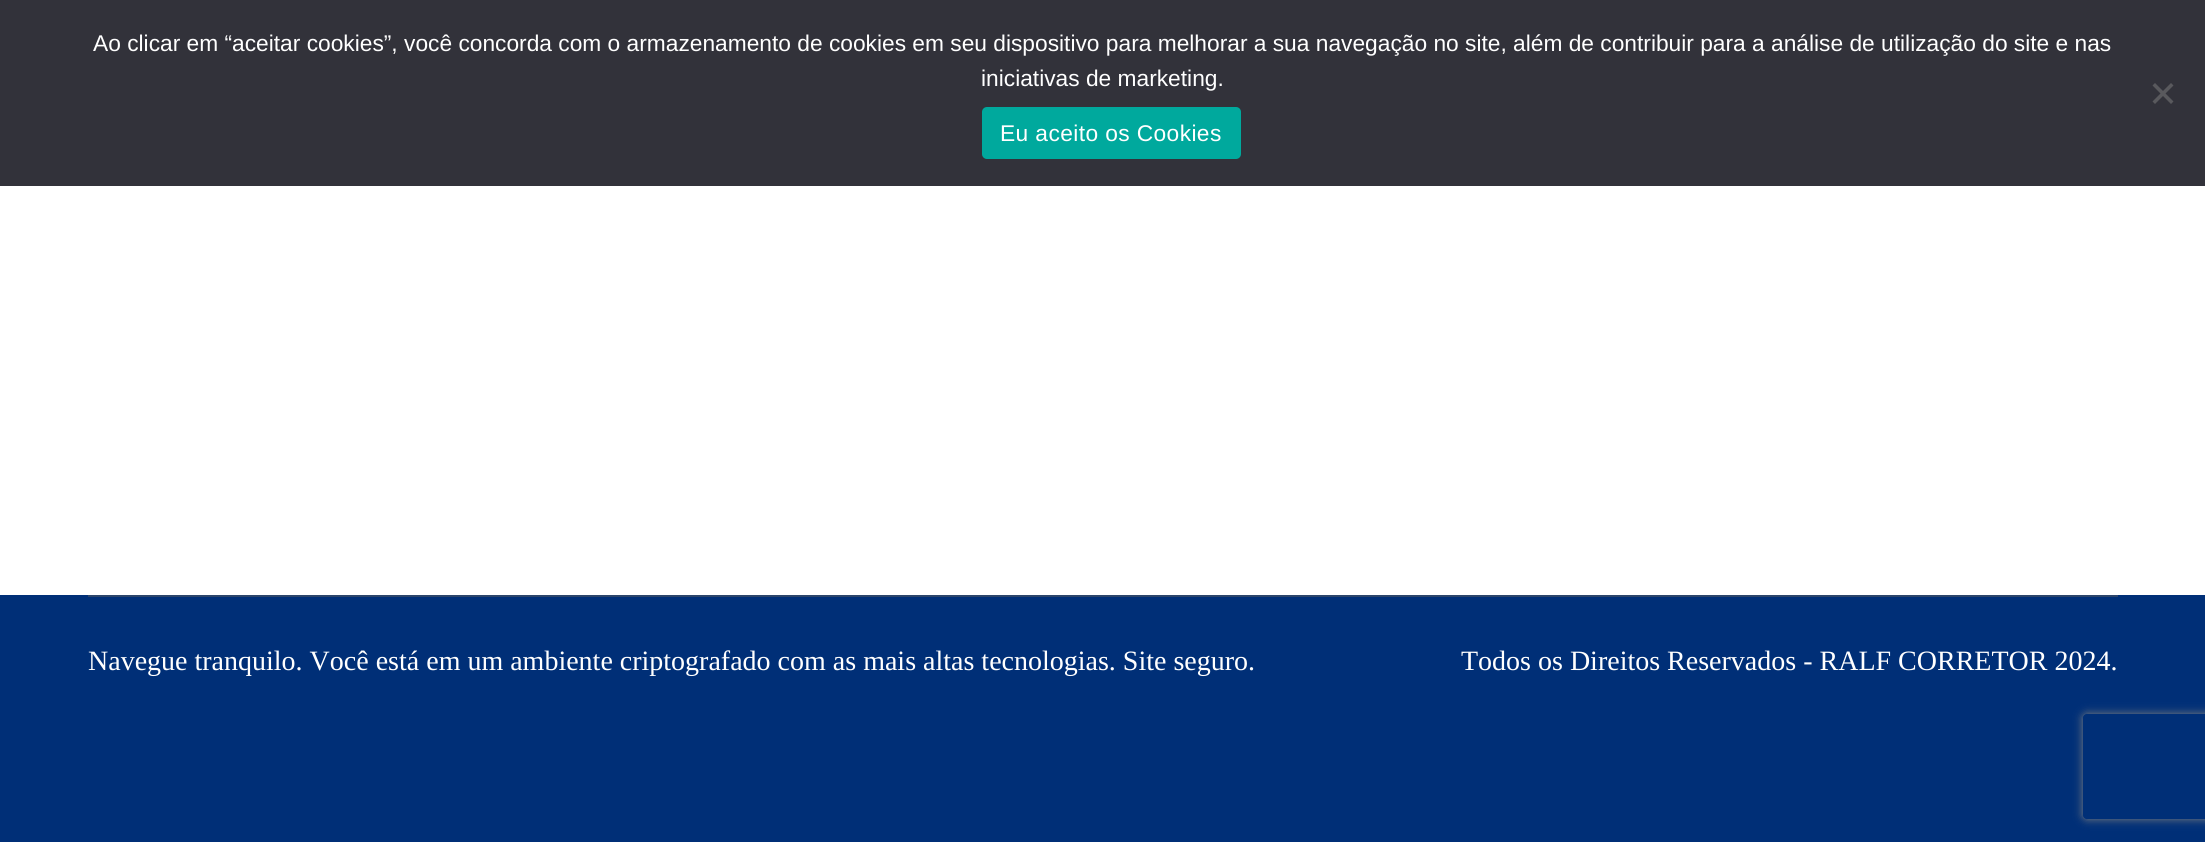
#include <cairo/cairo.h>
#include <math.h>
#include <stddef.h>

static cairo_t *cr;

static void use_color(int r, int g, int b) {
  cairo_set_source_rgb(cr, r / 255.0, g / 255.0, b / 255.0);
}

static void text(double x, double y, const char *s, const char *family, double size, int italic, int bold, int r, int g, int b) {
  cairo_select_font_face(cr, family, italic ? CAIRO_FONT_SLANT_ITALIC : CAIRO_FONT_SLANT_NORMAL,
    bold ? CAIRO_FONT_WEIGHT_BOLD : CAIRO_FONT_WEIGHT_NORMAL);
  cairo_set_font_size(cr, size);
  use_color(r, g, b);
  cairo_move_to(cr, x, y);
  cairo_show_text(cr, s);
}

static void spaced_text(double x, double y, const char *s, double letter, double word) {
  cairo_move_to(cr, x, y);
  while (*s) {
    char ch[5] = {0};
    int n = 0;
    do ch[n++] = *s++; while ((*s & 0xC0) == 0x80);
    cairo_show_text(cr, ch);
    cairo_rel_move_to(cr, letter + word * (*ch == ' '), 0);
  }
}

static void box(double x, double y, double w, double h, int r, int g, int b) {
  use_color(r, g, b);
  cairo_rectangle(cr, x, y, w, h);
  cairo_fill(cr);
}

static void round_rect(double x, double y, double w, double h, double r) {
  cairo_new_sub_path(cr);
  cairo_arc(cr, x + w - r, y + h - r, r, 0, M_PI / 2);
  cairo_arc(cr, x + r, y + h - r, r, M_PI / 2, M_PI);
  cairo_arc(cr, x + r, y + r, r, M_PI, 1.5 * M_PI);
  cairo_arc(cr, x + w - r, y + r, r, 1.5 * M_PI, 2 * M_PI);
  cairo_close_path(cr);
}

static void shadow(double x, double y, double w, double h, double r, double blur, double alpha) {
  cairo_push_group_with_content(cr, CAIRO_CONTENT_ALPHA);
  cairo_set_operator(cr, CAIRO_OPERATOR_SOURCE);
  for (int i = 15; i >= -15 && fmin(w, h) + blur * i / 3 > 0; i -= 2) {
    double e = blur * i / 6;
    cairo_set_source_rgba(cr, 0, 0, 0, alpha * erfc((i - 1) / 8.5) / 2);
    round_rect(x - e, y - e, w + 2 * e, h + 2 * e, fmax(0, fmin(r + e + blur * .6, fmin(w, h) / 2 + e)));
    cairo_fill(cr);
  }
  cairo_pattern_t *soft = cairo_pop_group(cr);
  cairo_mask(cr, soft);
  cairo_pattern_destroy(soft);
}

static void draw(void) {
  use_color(255, 255, 255);
  cairo_paint(cr);
  box(0, 0, 2205, 186, 50, 50, 58);
  use_color(89, 89, 93);
  cairo_new_path(cr);
  cairo_move_to(cr, 2171, 83);
  cairo_line_to(cr, 2173.5, 85.5);
  cairo_line_to(cr, 2155, 104);
  cairo_line_to(cr, 2152.5, 101.5);
  cairo_close_path(cr);
  cairo_fill(cr);
  cairo_new_path(cr);
  cairo_move_to(cr, 2152.5, 85.5);
  cairo_line_to(cr, 2155, 83);
  cairo_line_to(cr, 2173.5, 101.5);
  cairo_line_to(cr, 2171, 104);
  cairo_close_path(cr);
  cairo_fill(cr);
  use_color(0, 169, 157);
  round_rect(982, 107, 259, 52, 5);
  cairo_fill(cr);
  box(0, 595, 2205, 247, 0, 47, 119);
  box(88, 595, 2030, 2, 44, 69, 107);
  cairo_save(cr);
  cairo_set_fill_rule(cr, CAIRO_FILL_RULE_EVEN_ODD);
  cairo_new_path(cr);
  cairo_move_to(cr, 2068, 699);
  cairo_line_to(cr, 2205, 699);
  cairo_line_to(cr, 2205, 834);
  cairo_line_to(cr, 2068, 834);
  cairo_close_path(cr);
  cairo_move_to(cr, 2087, 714);
  cairo_line_to(cr, 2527, 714);
  cairo_curve_to(cr, 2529, 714, 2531, 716, 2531, 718);
  cairo_line_to(cr, 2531, 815);
  cairo_curve_to(cr, 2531, 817, 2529, 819, 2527, 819);
  cairo_line_to(cr, 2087, 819);
  cairo_curve_to(cr, 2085, 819, 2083, 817, 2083, 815);
  cairo_line_to(cr, 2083, 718);
  cairo_curve_to(cr, 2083, 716, 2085, 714, 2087, 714);
  cairo_close_path(cr);
  cairo_clip(cr);
  use_color(128, 128, 128);
  shadow(2083, 714, 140, 105, 4, 4.5, 1);
  cairo_restore(cr);
  text(93, 51, "Ao clicar em “aceitar cookies”, você concorda com o armazenamento de cookies em seu dispositivo para melhorar a sua navegação no site, além de contribuir para a análise de utilização do site e nas", "Liberation Sans", 22.75, 0, 0, 255, 255, 255);
  text(981, 86, "iniciativas de marketing.", "Liberation Sans", 22.75, 0, 0, 255, 255, 255);
  spaced_text(1000, 141, "Eu aceito os Cookies", 0.4, 0);
  text(88, 670, "Navegue tranquilo. Você está em um ambiente criptografado com as mais altas tecnologias. Site seguro.", "Liberation Serif", 28, 0, 0, 255, 255, 255);
  text(1461, 670, "Todos os Direitos Reservados - RALF CORRETOR 2024.", "Liberation Serif", 28, 0, 0, 255, 255, 255);
}

int main(void) {
  cairo_surface_t *surface = cairo_image_surface_create(CAIRO_FORMAT_RGB24, 2205, 842);
  cr = cairo_create(surface);
  cairo_font_options_t *options = cairo_font_options_create();
  cairo_font_options_set_hint_metrics(options, CAIRO_HINT_METRICS_OFF);
  cairo_font_options_set_hint_style(options, CAIRO_HINT_STYLE_NONE);
  cairo_set_font_options(cr, options);
  cairo_set_miter_limit(cr, 4);
  draw();
  cairo_surface_write_to_png(surface, "out.png");
  cairo_font_options_destroy(options);
  cairo_destroy(cr);
  cairo_surface_destroy(surface);
  return 0;
}
